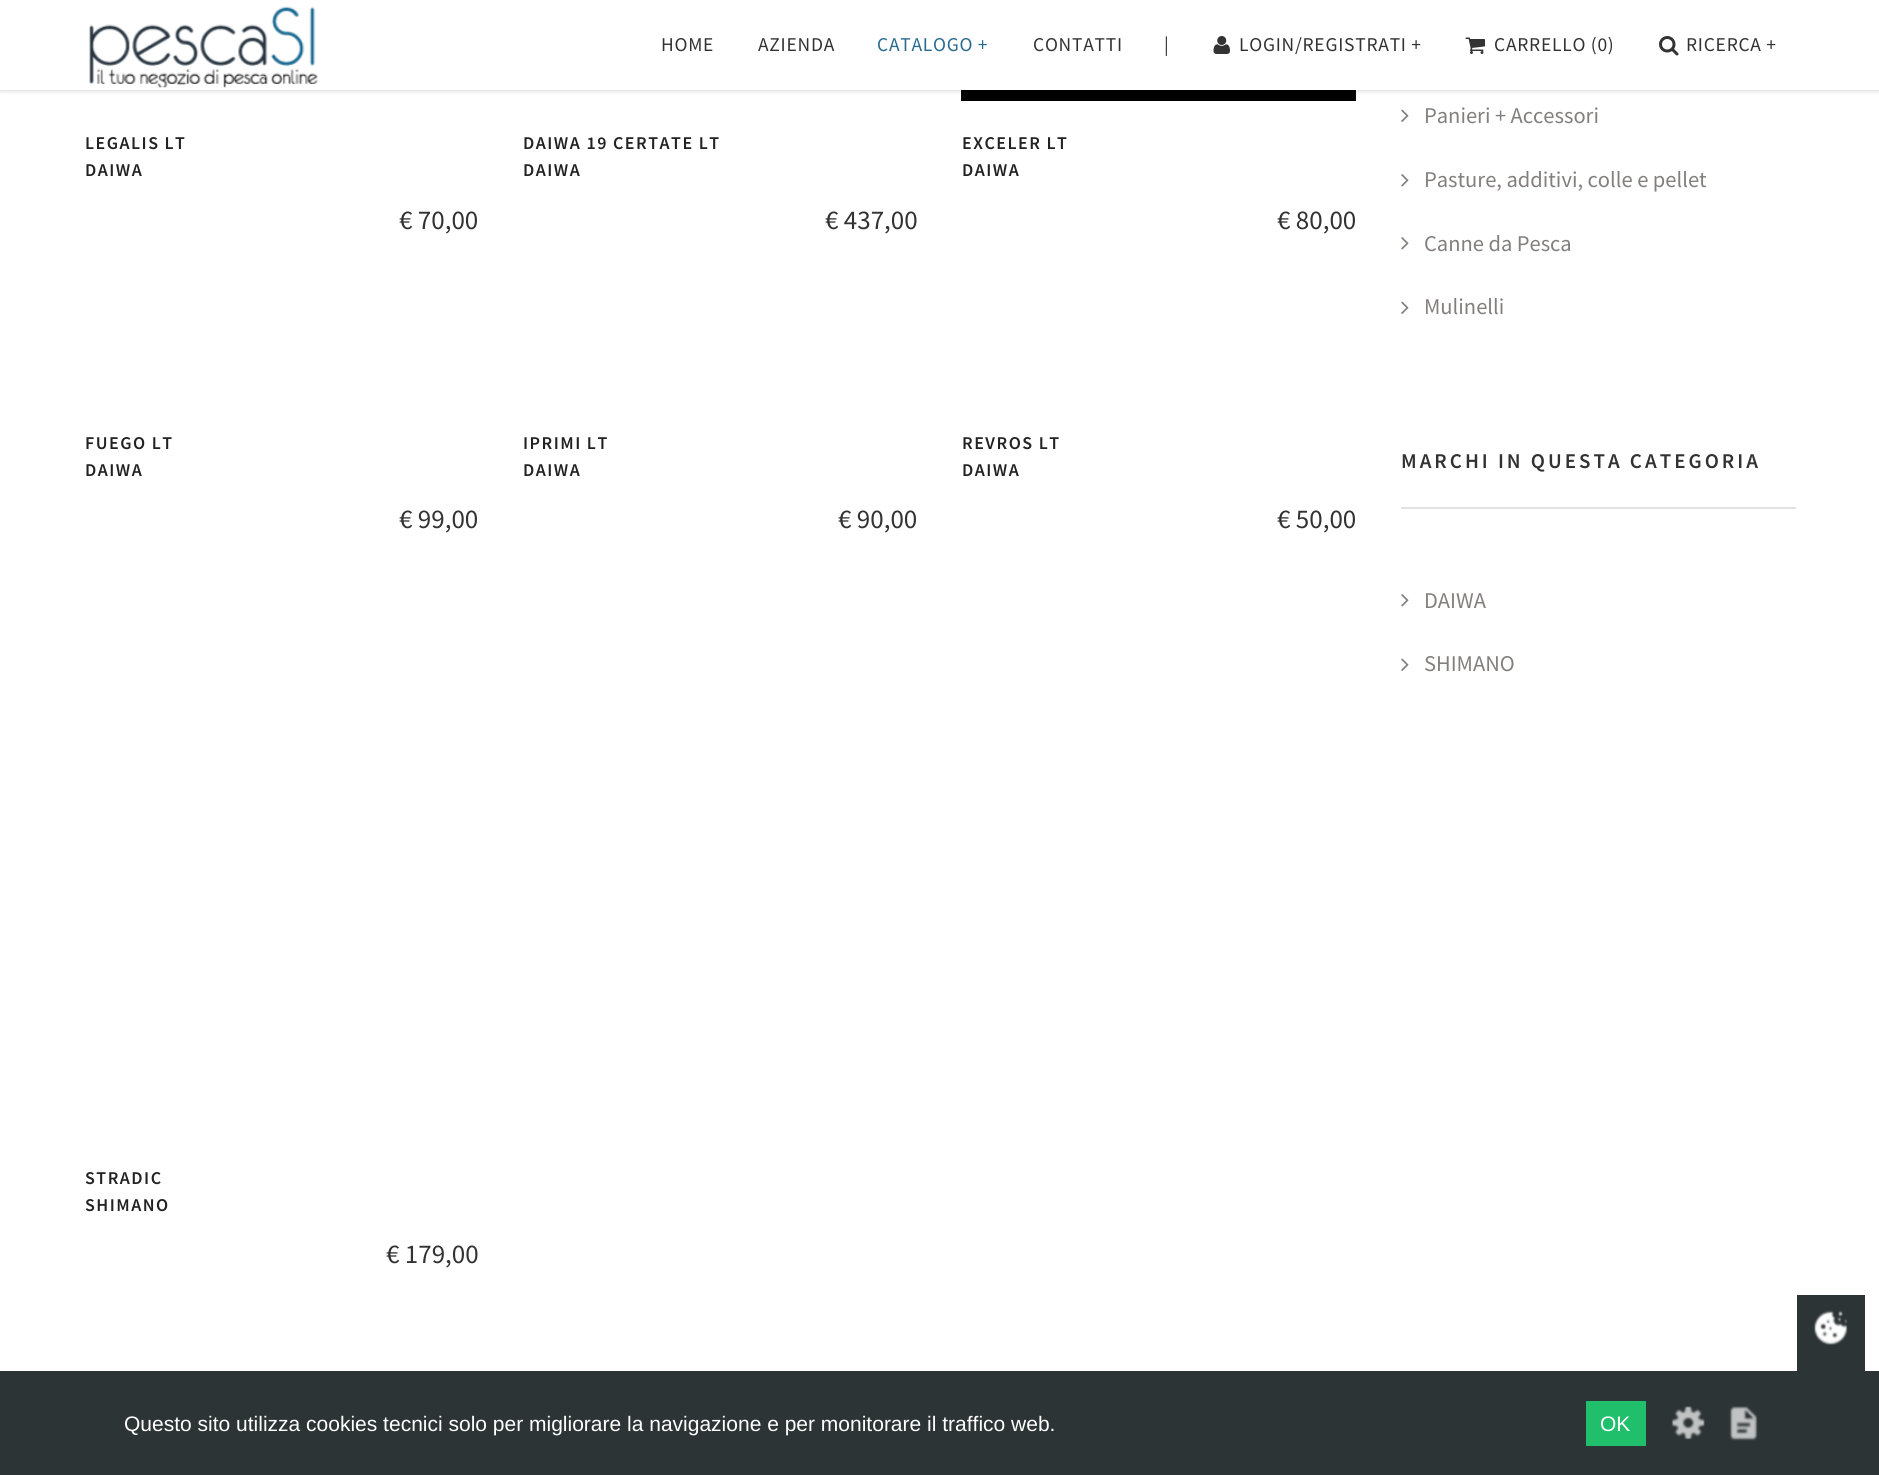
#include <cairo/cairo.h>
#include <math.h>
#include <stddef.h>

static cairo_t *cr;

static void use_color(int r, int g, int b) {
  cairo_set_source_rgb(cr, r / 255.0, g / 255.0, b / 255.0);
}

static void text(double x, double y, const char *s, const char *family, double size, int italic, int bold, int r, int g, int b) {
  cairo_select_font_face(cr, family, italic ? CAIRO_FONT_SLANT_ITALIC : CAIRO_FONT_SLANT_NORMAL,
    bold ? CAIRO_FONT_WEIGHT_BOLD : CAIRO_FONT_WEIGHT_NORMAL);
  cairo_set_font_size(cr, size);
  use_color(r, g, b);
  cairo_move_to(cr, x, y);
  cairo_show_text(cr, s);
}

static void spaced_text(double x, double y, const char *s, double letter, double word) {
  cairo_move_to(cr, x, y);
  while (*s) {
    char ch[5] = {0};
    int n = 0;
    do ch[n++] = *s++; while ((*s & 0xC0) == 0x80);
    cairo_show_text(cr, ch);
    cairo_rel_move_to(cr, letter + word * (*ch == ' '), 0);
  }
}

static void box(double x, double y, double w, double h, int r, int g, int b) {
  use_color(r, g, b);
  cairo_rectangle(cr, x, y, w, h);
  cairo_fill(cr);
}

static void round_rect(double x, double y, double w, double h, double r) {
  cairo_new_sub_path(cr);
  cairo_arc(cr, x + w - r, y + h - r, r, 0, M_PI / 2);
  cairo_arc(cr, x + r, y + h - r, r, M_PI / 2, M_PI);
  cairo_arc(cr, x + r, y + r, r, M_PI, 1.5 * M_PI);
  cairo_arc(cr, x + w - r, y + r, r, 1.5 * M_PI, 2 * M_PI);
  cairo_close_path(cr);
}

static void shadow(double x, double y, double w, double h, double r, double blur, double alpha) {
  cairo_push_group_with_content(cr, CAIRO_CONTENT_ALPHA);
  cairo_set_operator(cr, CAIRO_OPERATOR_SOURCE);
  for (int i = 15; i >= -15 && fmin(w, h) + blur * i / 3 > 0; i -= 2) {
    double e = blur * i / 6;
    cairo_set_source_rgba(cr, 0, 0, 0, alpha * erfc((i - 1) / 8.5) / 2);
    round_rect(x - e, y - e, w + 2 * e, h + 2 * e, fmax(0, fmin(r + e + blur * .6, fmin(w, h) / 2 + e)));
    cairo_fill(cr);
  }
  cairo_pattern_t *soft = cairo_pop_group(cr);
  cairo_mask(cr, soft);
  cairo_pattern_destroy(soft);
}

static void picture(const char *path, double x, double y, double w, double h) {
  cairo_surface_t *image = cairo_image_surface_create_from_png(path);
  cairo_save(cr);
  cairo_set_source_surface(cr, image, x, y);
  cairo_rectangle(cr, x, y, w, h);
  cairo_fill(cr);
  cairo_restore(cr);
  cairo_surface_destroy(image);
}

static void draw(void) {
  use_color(255, 255, 255);
  cairo_paint(cr);
  box(961, 90, 395, 11, 1, 1, 1);
  use_color(0, 0, 0);
  shadow(0, 2, 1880, 90, 0, 1.5, 0.1);
  box(0, 0, 1879, 90, 255, 255, 255);
  picture("img_01.png", 89, 6, 229, 82);
  picture("img_02.png", 1213, 36, 17, 18);
  picture("img_03.png", 1465, 37, 20, 17);
  picture("img_04.png", 1659, 36, 20, 20);
  picture("img_05.png", 1401, 109, 8, 13);
  picture("img_06.png", 1401, 174, 8, 13);
  picture("img_06.png", 1401, 237, 8, 13);
  picture("img_05.png", 1401, 301, 8, 13);
  box(1401, 507, 395, 2, 226, 226, 226);
  picture("img_06.png", 1401, 594, 8, 13);
  picture("img_05.png", 1401, 658, 8, 13);
  box(0, 1371, 1879, 104, 45, 52, 54);
  box(1797, 1295, 68, 76, 45, 52, 54);
  picture("img_07.png", 1814, 1310, 34, 35);
  box(1586, 1401, 60, 45, 32, 191, 107);
  picture("img_08.png", 1671, 1406, 34, 34);
  picture("img_09.png", 1729, 1406, 29, 35);
  cairo_select_font_face(cr, "Source Sans Pro", CAIRO_FONT_SLANT_NORMAL, CAIRO_FONT_WEIGHT_NORMAL);
  cairo_set_font_size(cr, 19.5);
  use_color(50, 50, 50);
  spaced_text(661, 51, "HOME", 0.75, 0);
  spaced_text(758, 51, "AZIENDA", 0.75, 0);
  use_color(40, 105, 144);
  spaced_text(877, 51, "CATALOGO +", 0.75, 0);
  use_color(50, 50, 50);
  spaced_text(1033, 51, "CONTATTI", 0.75, 0);
  spaced_text(1164, 51, "|", 0.75, 0);
  spaced_text(1239, 51, "LOGIN/REGISTRATI +", 0.75, 0);
  spaced_text(1494, 51, "CARRELLO (0)", 0.75, 0);
  spaced_text(1686, 51, "RICERCA +", 0.75, 0);
  cairo_select_font_face(cr, "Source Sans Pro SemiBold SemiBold", CAIRO_FONT_SLANT_NORMAL, CAIRO_FONT_WEIGHT_NORMAL);
  cairo_set_font_size(cr, 18);
  use_color(34, 34, 34);
  spaced_text(85, 149, "LEGALIS LT", 1.5, 0);
  spaced_text(85, 176, "DAIWA", 1.5, 0);
  text(399, 229, "€ 70,00", "Source Sans Pro", 27, 0, 0, 50, 50, 50);
  cairo_select_font_face(cr, "Source Sans Pro SemiBold SemiBold", CAIRO_FONT_SLANT_NORMAL, CAIRO_FONT_WEIGHT_NORMAL);
  cairo_set_font_size(cr, 18);
  use_color(34, 34, 34);
  spaced_text(523, 149, "DAIWA 19 CERTATE LT", 1.5, 0);
  spaced_text(523, 176, "DAIWA", 1.5, 0);
  text(825, 229, "€ 437,00", "Source Sans Pro", 27, 0, 0, 50, 50, 50);
  cairo_select_font_face(cr, "Source Sans Pro SemiBold SemiBold", CAIRO_FONT_SLANT_NORMAL, CAIRO_FONT_WEIGHT_NORMAL);
  cairo_set_font_size(cr, 18);
  use_color(34, 34, 34);
  spaced_text(962, 149, "EXCELER LT", 1.5, 0);
  spaced_text(962, 176, "DAIWA", 1.5, 0);
  text(1277, 229, "€ 80,00", "Source Sans Pro", 27, 0, 0, 50, 50, 50);
  cairo_select_font_face(cr, "Source Sans Pro SemiBold SemiBold", CAIRO_FONT_SLANT_NORMAL, CAIRO_FONT_WEIGHT_NORMAL);
  cairo_set_font_size(cr, 18);
  use_color(34, 34, 34);
  spaced_text(85, 449, "FUEGO LT", 1.5, 0);
  spaced_text(85, 476, "DAIWA", 1.5, 0);
  text(399, 528, "€ 99,00", "Source Sans Pro", 27, 0, 0, 50, 50, 50);
  cairo_select_font_face(cr, "Source Sans Pro SemiBold SemiBold", CAIRO_FONT_SLANT_NORMAL, CAIRO_FONT_WEIGHT_NORMAL);
  cairo_set_font_size(cr, 18);
  use_color(34, 34, 34);
  spaced_text(523, 449, "IPRIMI LT", 1.5, 0);
  spaced_text(523, 476, "DAIWA", 1.5, 0);
  text(838, 528, "€ 90,00", "Source Sans Pro", 27, 0, 0, 50, 50, 50);
  cairo_select_font_face(cr, "Source Sans Pro SemiBold SemiBold", CAIRO_FONT_SLANT_NORMAL, CAIRO_FONT_WEIGHT_NORMAL);
  cairo_set_font_size(cr, 18);
  use_color(34, 34, 34);
  spaced_text(962, 449, "REVROS LT", 1.5, 0);
  spaced_text(962, 476, "DAIWA", 1.5, 0);
  text(1277, 528, "€ 50,00", "Source Sans Pro", 27, 0, 0, 50, 50, 50);
  cairo_select_font_face(cr, "Source Sans Pro SemiBold SemiBold", CAIRO_FONT_SLANT_NORMAL, CAIRO_FONT_WEIGHT_NORMAL);
  cairo_set_font_size(cr, 18);
  use_color(34, 34, 34);
  spaced_text(85, 1184, "STRADIC", 1.5, 0);
  spaced_text(85, 1211, "SHIMANO", 1.5, 0);
  text(386, 1263, "€ 179,00", "Source Sans Pro", 27, 0, 0, 50, 50, 50);
  text(1424, 123, "Panieri + Accessori", "Source Sans Pro", 22.5, 0, 0, 131, 127, 126);
  text(1424, 187, "Pasture, additivi, colle e pellet", "Source Sans Pro", 22.5, 0, 0, 131, 127, 126);
  text(1424, 251, "Canne da Pesca", "Source Sans Pro", 22.5, 0, 0, 131, 127, 126);
  text(1424, 314, "Mulinelli", "Source Sans Pro", 22.5, 0, 0, 131, 127, 126);
  cairo_select_font_face(cr, "Source Sans Pro SemiBold SemiBold", CAIRO_FONT_SLANT_NORMAL, CAIRO_FONT_WEIGHT_NORMAL);
  cairo_set_font_size(cr, 21);
  use_color(50, 50, 50);
  spaced_text(1401, 468, "MARCHI IN QUESTA CATEGORIA", 3, 0);
  text(1424, 608, "DAIWA", "Source Sans Pro", 22.5, 0, 0, 131, 127, 126);
  text(1424, 671, "SHIMANO", "Source Sans Pro", 22.5, 0, 0, 131, 127, 126);
  text(124, 1431, "Questo sito utilizza cookies tecnici solo per migliorare la navigazione e per monitorare il traffico web.", "Liberation Sans", 21, 0, 0, 255, 255, 255);
  text(1600, 1431, "OK", "Liberation Sans", 21, 0, 0, 255, 255, 255);
}

int main(void) {
  cairo_surface_t *surface = cairo_image_surface_create(CAIRO_FORMAT_RGB24, 1879, 1475);
  cr = cairo_create(surface);
  cairo_font_options_t *options = cairo_font_options_create();
  cairo_font_options_set_hint_metrics(options, CAIRO_HINT_METRICS_OFF);
  cairo_font_options_set_hint_style(options, CAIRO_HINT_STYLE_NONE);
  cairo_set_font_options(cr, options);
  cairo_set_miter_limit(cr, 4);
  draw();
  cairo_surface_write_to_png(surface, "out.png");
  cairo_font_options_destroy(options);
  cairo_destroy(cr);
  cairo_surface_destroy(surface);
  return 0;
}
